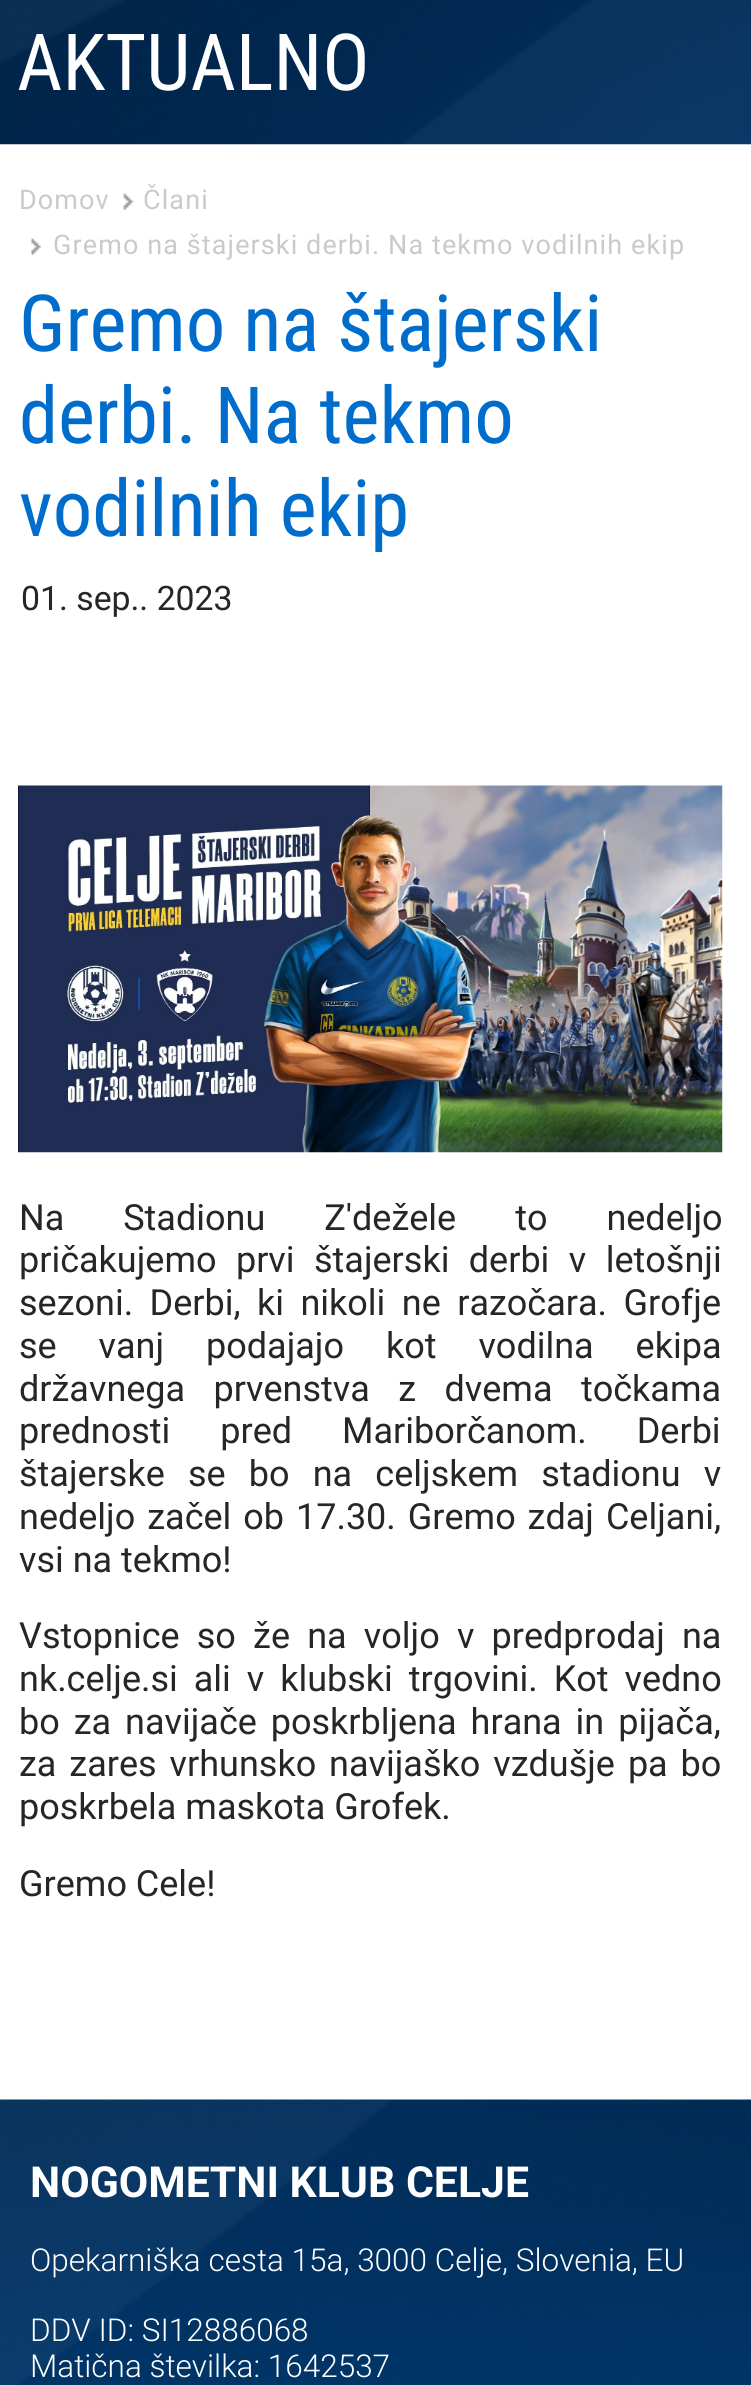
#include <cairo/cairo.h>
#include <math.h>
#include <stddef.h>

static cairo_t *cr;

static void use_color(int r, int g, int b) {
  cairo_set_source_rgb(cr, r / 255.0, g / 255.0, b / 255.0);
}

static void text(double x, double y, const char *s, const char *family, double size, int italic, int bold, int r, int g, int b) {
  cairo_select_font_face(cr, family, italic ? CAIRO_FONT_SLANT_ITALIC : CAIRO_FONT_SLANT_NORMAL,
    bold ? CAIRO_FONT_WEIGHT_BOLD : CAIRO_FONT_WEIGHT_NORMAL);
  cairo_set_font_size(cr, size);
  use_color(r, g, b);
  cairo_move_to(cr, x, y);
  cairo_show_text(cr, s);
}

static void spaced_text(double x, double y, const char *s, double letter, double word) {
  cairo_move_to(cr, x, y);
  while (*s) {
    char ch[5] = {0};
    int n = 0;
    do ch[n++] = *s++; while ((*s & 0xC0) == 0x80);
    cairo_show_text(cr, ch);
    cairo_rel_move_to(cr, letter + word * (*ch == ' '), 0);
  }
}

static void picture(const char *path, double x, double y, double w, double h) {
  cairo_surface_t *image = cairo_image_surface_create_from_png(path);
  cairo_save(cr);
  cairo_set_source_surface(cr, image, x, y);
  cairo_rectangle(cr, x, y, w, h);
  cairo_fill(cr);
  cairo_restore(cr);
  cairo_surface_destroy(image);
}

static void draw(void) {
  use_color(255, 255, 255);
  cairo_paint(cr);
  picture("img_01.png", 0, 0, 751, 145);
  picture("img_02.png", 123, 193, 11, 18);
  picture("img_03.png", 31, 238, 11, 18);
  picture("img_04.png", 18, 785, 705, 368);
  picture("img_05.png", 0, 2099, 751, 286);
  text(17, 90, "AKTUALNO", "Roboto Condensed", 78.75, 0, 0, 255, 255, 255);
  cairo_select_font_face(cr, "Roboto", CAIRO_FONT_SLANT_NORMAL, CAIRO_FONT_WEIGHT_NORMAL);
  cairo_set_font_size(cr, 27);
  use_color(202, 202, 202);
  spaced_text(19, 209, "Domov", 1.1, 0);
  spaced_text(143, 209, "Člani", 1.1, 0);
  spaced_text(53, 254, "Gremo na štajerski derbi. Na tekmo vodilnih ekip", 1.1, 0);
  text(19, 351, "Gremo na štajerski", "Roboto Condensed", 78.75, 0, 0, 0, 109, 204);
  text(19, 443, "derbi. Na tekmo", "Roboto Condensed", 78.75, 0, 0, 0, 109, 204);
  text(19, 536, "vodilnih ekip", "Roboto Condensed", 78.75, 0, 0, 0, 109, 204);
  text(21, 610, "01. sep.. 2023", "Roboto", 33.75, 0, 0, 38, 38, 38);
  cairo_set_font_size(cr, 36);
  spaced_text(19, 1230, "Na Stadionu Z'dežele to nedeljo", 0, 50);
  spaced_text(19, 1272, "pričakujemo prvi štajerski derbi v letošnji", 0, 10.5);
  spaced_text(19, 1315, "sezoni. Derbi, ki nikoli ne razočara. Grofje", 0, 7.5);
  spaced_text(19, 1358, "se vanj podajajo kot vodilna ekipa", 0, 33);
  spaced_text(19, 1401, "državnega prvenstva z dvema točkama", 0, 19.5);
  spaced_text(19, 1443, "prednosti pred Mariborčanom. Derbi", 0, 41);
  spaced_text(19, 1486, "štajerske se bo na celjskem stadionu v", 0, 14.25);
  spaced_text(19, 1529, "nedeljo začel ob 17.30. Gremo zdaj Celjani,", 0, 3);
  text(19, 1572, "vsi na tekmo!", "Roboto", 36, 0, 0, 38, 38, 38);
  spaced_text(19, 1648, "Vstopnice so že na voljo v predprodaj na", 0, 8.25);
  spaced_text(19, 1691, "nk.celje.si ali v klubski trgovini. Kot vedno", 0, 7);
  spaced_text(19, 1734, "bo za navijače poskrbljena hrana in pijača,", 0, 5);
  spaced_text(19, 1776, "za zares vrhunsko navijaško vzdušje pa bo", 0, 4);
  text(19, 1819, "poskrbela maskota Grofek.", "Roboto", 36, 0, 0, 38, 38, 38);
  text(19, 1896, "Gremo Cele!", "Roboto", 36, 0, 0, 38, 38, 38);
  text(30, 2197, "NOGOMETNI KLUB CELJE", "Roboto", 42.75, 0, 1, 255, 255, 255);
  text(30, 2271, "Opekarniška cesta 15a, 3000 Celje, Slovenia, EU", "Roboto Light", 31.5, 0, 0, 255, 255, 255);
  text(30, 2341, "DDV ID: SI12886068", "Roboto Light", 31.5, 0, 0, 255, 255, 255);
  text(30, 2377, "Matična številka: 1642537", "Roboto Light", 31.5, 0, 0, 255, 255, 255);
}

int main(void) {
  cairo_surface_t *surface = cairo_image_surface_create(CAIRO_FORMAT_RGB24, 751, 2385);
  cr = cairo_create(surface);
  cairo_font_options_t *options = cairo_font_options_create();
  cairo_font_options_set_hint_metrics(options, CAIRO_HINT_METRICS_OFF);
  cairo_font_options_set_hint_style(options, CAIRO_HINT_STYLE_NONE);
  cairo_set_font_options(cr, options);
  cairo_set_miter_limit(cr, 4);
  draw();
  cairo_surface_write_to_png(surface, "out.png");
  cairo_font_options_destroy(options);
  cairo_destroy(cr);
  cairo_surface_destroy(surface);
  return 0;
}
